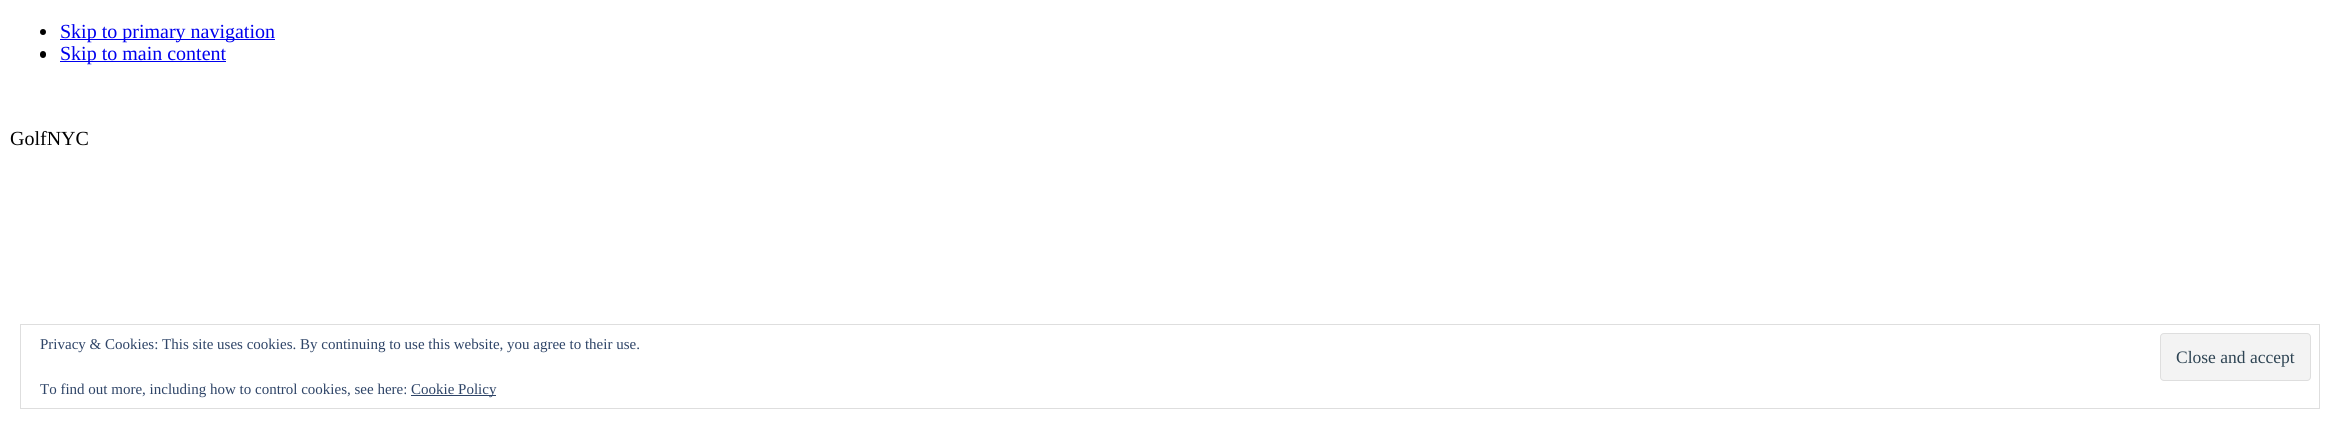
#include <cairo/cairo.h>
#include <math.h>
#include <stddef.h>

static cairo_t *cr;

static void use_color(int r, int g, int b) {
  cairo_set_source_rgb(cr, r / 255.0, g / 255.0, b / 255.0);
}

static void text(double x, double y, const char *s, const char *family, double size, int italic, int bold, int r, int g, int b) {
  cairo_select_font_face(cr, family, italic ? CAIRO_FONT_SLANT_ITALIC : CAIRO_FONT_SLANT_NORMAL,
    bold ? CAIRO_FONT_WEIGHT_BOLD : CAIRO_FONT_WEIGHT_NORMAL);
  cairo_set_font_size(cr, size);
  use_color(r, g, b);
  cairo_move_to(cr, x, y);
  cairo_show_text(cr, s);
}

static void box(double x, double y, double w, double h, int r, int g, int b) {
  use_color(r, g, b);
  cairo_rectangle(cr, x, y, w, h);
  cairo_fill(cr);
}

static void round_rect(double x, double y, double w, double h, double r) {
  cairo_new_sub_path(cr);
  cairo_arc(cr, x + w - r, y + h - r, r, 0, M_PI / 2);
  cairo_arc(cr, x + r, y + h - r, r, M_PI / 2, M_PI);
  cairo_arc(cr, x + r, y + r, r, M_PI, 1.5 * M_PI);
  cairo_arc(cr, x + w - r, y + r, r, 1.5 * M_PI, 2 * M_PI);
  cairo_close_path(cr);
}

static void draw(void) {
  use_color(255, 255, 255);
  cairo_paint(cr);
  use_color(0, 0, 0);
  cairo_arc(cr, 43, 32, 3, 0, 2 * M_PI);
  cairo_fill(cr);
  box(60, 39, 215, 1, 0, 0, 238);
  use_color(0, 0, 0);
  round_rect(40, 51, 6, 7, 3);
  cairo_fill(cr);
  box(60, 61, 166, 1, 0, 0, 238);
  cairo_rectangle(cr, 20.5, 324.5, 2299, 84);
  use_color(222, 222, 222);
  cairo_set_line_width(cr, 1);
  cairo_stroke(cr);
  use_color(243, 243, 243);
  round_rect(2160.5, 333.5, 150, 47, 3.5);
  cairo_fill_preserve(cr);
  use_color(222, 222, 222);
  cairo_stroke(cr);
  box(411, 395, 85, 1, 46, 68, 103);
  text(60, 38, "Skip to primary navigation", "Liberation Serif", 20, 0, 0, 0, 0, 238);
  text(60, 60, "Skip to main content", "Liberation Serif", 20, 0, 0, 0, 0, 238);
  text(10, 145, "GolfNYC", "Liberation Serif", 20, 0, 0, 0, 0, 0);
  text(40, 349, "Privacy & Cookies: This site uses cookies. By continuing to use this website, you agree to their use.", "Liberation Serif", 15, 0, 0, 46, 68, 103);
  text(2176, 363, "Close and accept", "Liberation Serif", 17.5, 0, 0, 46, 68, 83);
  text(40, 394, "To find out more, including how to control cookies, see here:", "Liberation Serif", 15, 0, 0, 46, 68, 103);
  text(411, 394, "Cookie Policy", "Liberation Serif", 15, 0, 0, 46, 68, 103);
}

int main(void) {
  cairo_surface_t *surface = cairo_image_surface_create(CAIRO_FORMAT_RGB24, 2340, 428);
  cr = cairo_create(surface);
  cairo_font_options_t *options = cairo_font_options_create();
  cairo_font_options_set_hint_metrics(options, CAIRO_HINT_METRICS_OFF);
  cairo_font_options_set_hint_style(options, CAIRO_HINT_STYLE_NONE);
  cairo_set_font_options(cr, options);
  cairo_set_miter_limit(cr, 4);
  draw();
  cairo_surface_write_to_png(surface, "out.png");
  cairo_font_options_destroy(options);
  cairo_destroy(cr);
  cairo_surface_destroy(surface);
  return 0;
}
